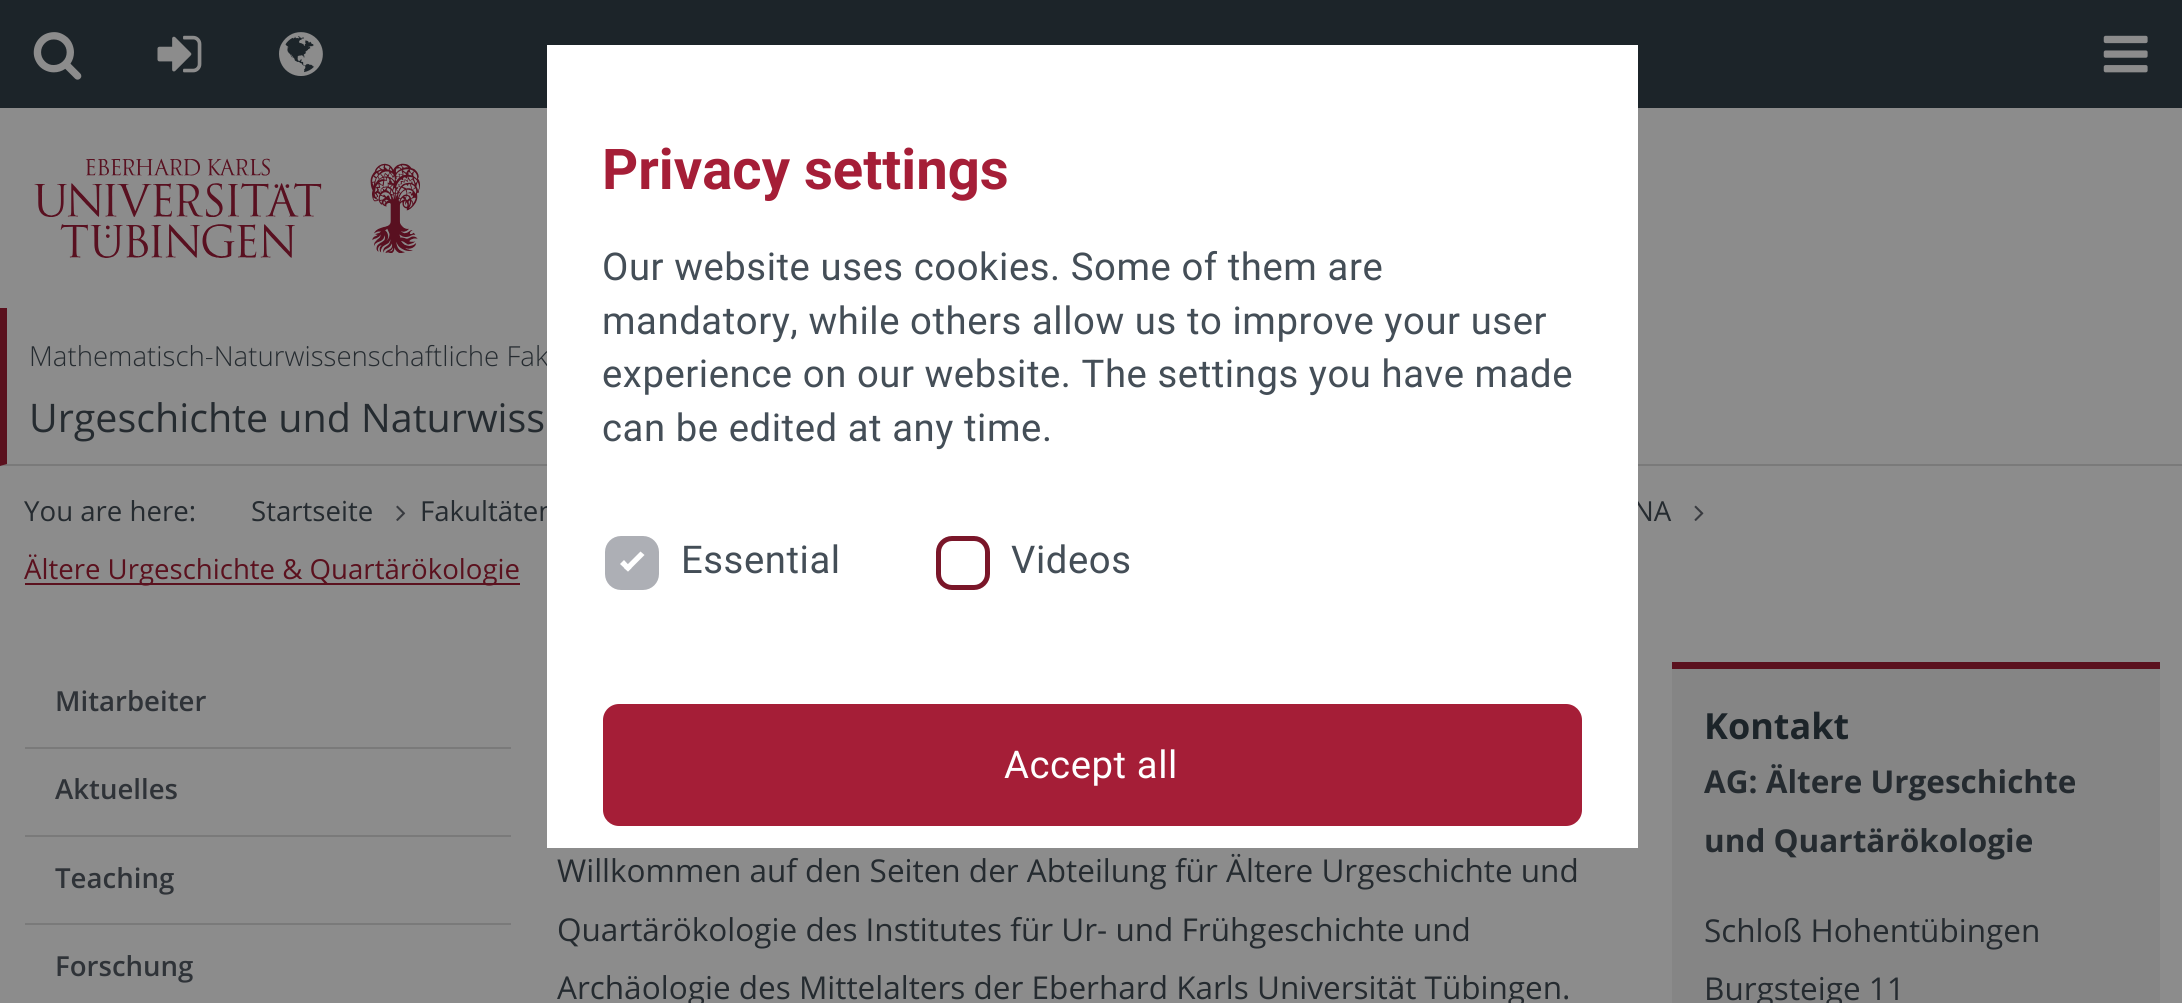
#include <cairo/cairo.h>
#include <math.h>
#include <stddef.h>

static cairo_t *cr;

static void use_color(int r, int g, int b) {
  cairo_set_source_rgb(cr, r / 255.0, g / 255.0, b / 255.0);
}

static void text(double x, double y, const char *s, const char *family, double size, int italic, int bold, int r, int g, int b) {
  cairo_select_font_face(cr, family, italic ? CAIRO_FONT_SLANT_ITALIC : CAIRO_FONT_SLANT_NORMAL,
    bold ? CAIRO_FONT_WEIGHT_BOLD : CAIRO_FONT_WEIGHT_NORMAL);
  cairo_set_font_size(cr, size);
  use_color(r, g, b);
  cairo_move_to(cr, x, y);
  cairo_show_text(cr, s);
}

static void spaced_text(double x, double y, const char *s, double letter, double word) {
  cairo_move_to(cr, x, y);
  while (*s) {
    char ch[5] = {0};
    int n = 0;
    do ch[n++] = *s++; while ((*s & 0xC0) == 0x80);
    cairo_show_text(cr, ch);
    cairo_rel_move_to(cr, letter + word * (*ch == ' '), 0);
  }
}

static void box(double x, double y, double w, double h, int r, int g, int b) {
  use_color(r, g, b);
  cairo_rectangle(cr, x, y, w, h);
  cairo_fill(cr);
}

static void round_rect(double x, double y, double w, double h, double r) {
  cairo_new_sub_path(cr);
  cairo_arc(cr, x + w - r, y + h - r, r, 0, M_PI / 2);
  cairo_arc(cr, x + r, y + h - r, r, M_PI / 2, M_PI);
  cairo_arc(cr, x + r, y + r, r, M_PI, 1.5 * M_PI);
  cairo_arc(cr, x + w - r, y + r, r, 1.5 * M_PI, 2 * M_PI);
  cairo_close_path(cr);
}

static void picture(const char *path, double x, double y, double w, double h) {
  cairo_surface_t *image = cairo_image_surface_create_from_png(path);
  cairo_save(cr);
  cairo_set_source_surface(cr, image, x, y);
  cairo_rectangle(cr, x, y, w, h);
  cairo_fill(cr);
  cairo_restore(cr);
  cairo_surface_destroy(image);
}

static void draw(void) {
  use_color(140, 140, 140);
  cairo_paint(cr);
  box(0, 0, 2182, 108, 28, 36, 41);
  picture("img_01.png", 33, 32, 49, 48);
  picture("img_02.png", 157, 35, 45, 38);
  picture("img_03.png", 279, 32, 44, 44);
  picture("img_04.png", 2103, 35, 45, 38);
  picture("img_05.png", 34, 158, 386, 100);
  use_color(122, 122, 122);
  cairo_new_path(cr);
  cairo_move_to(cr, 2182, 466);
  cairo_line_to(cr, 0, 466);
  cairo_line_to(cr, 7, 464);
  cairo_line_to(cr, 2182, 464);
  cairo_close_path(cr);
  cairo_fill(cr);
  use_color(91, 17, 30);
  cairo_new_path(cr);
  cairo_move_to(cr, 0, 466);
  cairo_line_to(cr, 0, 308);
  cairo_line_to(cr, 7, 308);
  cairo_line_to(cr, 7, 464);
  cairo_close_path(cr);
  cairo_fill(cr);
  picture("img_06.png", 396, 505, 10, 16);
  picture("img_07.png", 1694, 505, 10, 16);
  box(25, 583, 495, 2, 91, 17, 30);
  box(25, 747, 486, 2, 122, 122, 122);
  box(25, 835, 486, 2, 122, 122, 122);
  box(25, 923, 486, 2, 122, 122, 122);
  box(1672, 669, 488, 334, 133, 133, 133);
  box(1672, 662, 488, 7, 91, 17, 30);
  text(29, 366, "Mathematisch-Naturwissenschaftliche Fak", "Open Sans Light", 27.6, 0, 0, 37, 43, 48);
  text(29, 432, "Urgeschichte und Naturwiss", "Open Sans", 39.4, 0, 0, 37, 43, 48);
  text(24, 521, "You are here:", "Open Sans", 27.6, 0, 0, 37, 43, 48);
  text(251, 521, "Startseite", "Open Sans", 27.6, 0, 0, 37, 43, 48);
  text(420, 521, "Fakultäten", "Open Sans", 27.6, 0, 0, 37, 43, 48);
  text(1633, 521, "NA", "Open Sans", 27.6, 0, 0, 37, 43, 48);
  box(547, 45, 1091, 803, 255, 255, 255);
  cairo_select_font_face(cr, "Roboto", CAIRO_FONT_SLANT_NORMAL, CAIRO_FONT_WEIGHT_NORMAL);
  cairo_set_font_size(cr, 38.25);
  use_color(68, 78, 87);
  spaced_text(1011, 573, "Videos", 0.57, 0);
  round_rect(938.5, 538.5, 49, 49, 13.5);
  use_color(122, 22, 41);
  cairo_set_line_width(cr, 5);
  cairo_stroke(cr);
  use_color(173, 175, 181);
  round_rect(607.5, 538.5, 49, 49, 13.5);
  cairo_fill_preserve(cr);
  cairo_stroke(cr);
  use_color(255, 255, 255);
  cairo_new_path(cr);
  cairo_move_to(cr, 624, 568);
  cairo_line_to(cr, 640.5, 551.5);
  cairo_line_to(cr, 644.5, 555);
  cairo_line_to(cr, 628, 571.5);
  cairo_close_path(cr);
  cairo_fill(cr);
  cairo_new_path(cr);
  cairo_move_to(cr, 620, 564);
  cairo_line_to(cr, 624, 560);
  cairo_line_to(cr, 631.5, 568);
  cairo_line_to(cr, 628, 571.5);
  cairo_close_path(cr);
  cairo_fill(cr);
  use_color(68, 78, 87);
  spaced_text(681, 573, "Essential", 0.57, 0);
  use_color(165, 30, 55);
  round_rect(603, 704, 979, 122, 16);
  cairo_fill(cr);
  use_color(255, 255, 255);
  spaced_text(1004, 778, "Accept all", 0.57, 0);
  use_color(68, 78, 87);
  spaced_text(602, 441, "can be edited at any time.", 0.57, 0);
  spaced_text(602, 387, "experience on our website. The settings you have made", 0.57, 0);
  spaced_text(602, 334, "mandatory, while others allow us to improve your user", 0.57, 0);
  spaced_text(602, 280, "Our website uses cookies. Some of them are", 0.57, 0);
  text(602, 189, "Privacy settings", "Roboto", 56.25, 0, 1, 165, 30, 55);
  text(24, 579, "Ältere Urgeschichte & Quartärökologie", "Open Sans", 27.6, 0, 0, 91, 17, 30);
  text(55, 711, "Mitarbeiter", "Open Sans SemiBold", 27.6, 0, 0, 47, 51, 56);
  text(55, 799, "Aktuelles", "Open Sans SemiBold", 27.6, 0, 0, 47, 51, 56);
  text(55, 888, "Teaching", "Open Sans SemiBold", 27.6, 0, 0, 47, 51, 56);
  text(55, 976, "Forschung", "Open Sans SemiBold", 27.6, 0, 0, 47, 51, 56);
  text(557, 882, "Willkommen auf den Seiten der Abteilung für Ältere Urgeschichte und", "Open Sans", 31.5, 0, 0, 37, 43, 48);
  text(557, 941, "Quartärökologie des Institutes für Ur- und Frühgeschichte und", "Open Sans", 31.5, 0, 0, 37, 43, 48);
  text(557, 999, "Archäologie des Mittelalters der Eberhard Karls Universität Tübingen.", "Open Sans", 31.5, 0, 0, 37, 43, 48);
  text(1704, 739, "Kontakt", "Open Sans", 36, 0, 1, 28, 36, 41);
  text(1704, 793, "AG: Ältere Urgeschichte", "Open Sans", 31.5, 0, 1, 37, 43, 48);
  text(1704, 852, "und Quartärökologie", "Open Sans", 31.5, 0, 1, 37, 43, 48);
  text(1704, 942, "Schloß Hohentübingen", "Open Sans", 31.5, 0, 0, 37, 43, 48);
  text(1704, 1000, "Burgsteige 11", "Open Sans", 31.5, 0, 0, 37, 43, 48);
}

int main(void) {
  cairo_surface_t *surface = cairo_image_surface_create(CAIRO_FORMAT_RGB24, 2182, 1003);
  cr = cairo_create(surface);
  cairo_font_options_t *options = cairo_font_options_create();
  cairo_font_options_set_hint_metrics(options, CAIRO_HINT_METRICS_OFF);
  cairo_font_options_set_hint_style(options, CAIRO_HINT_STYLE_NONE);
  cairo_set_font_options(cr, options);
  cairo_set_miter_limit(cr, 4);
  draw();
  cairo_surface_write_to_png(surface, "out.png");
  cairo_font_options_destroy(options);
  cairo_destroy(cr);
  cairo_surface_destroy(surface);
  return 0;
}
